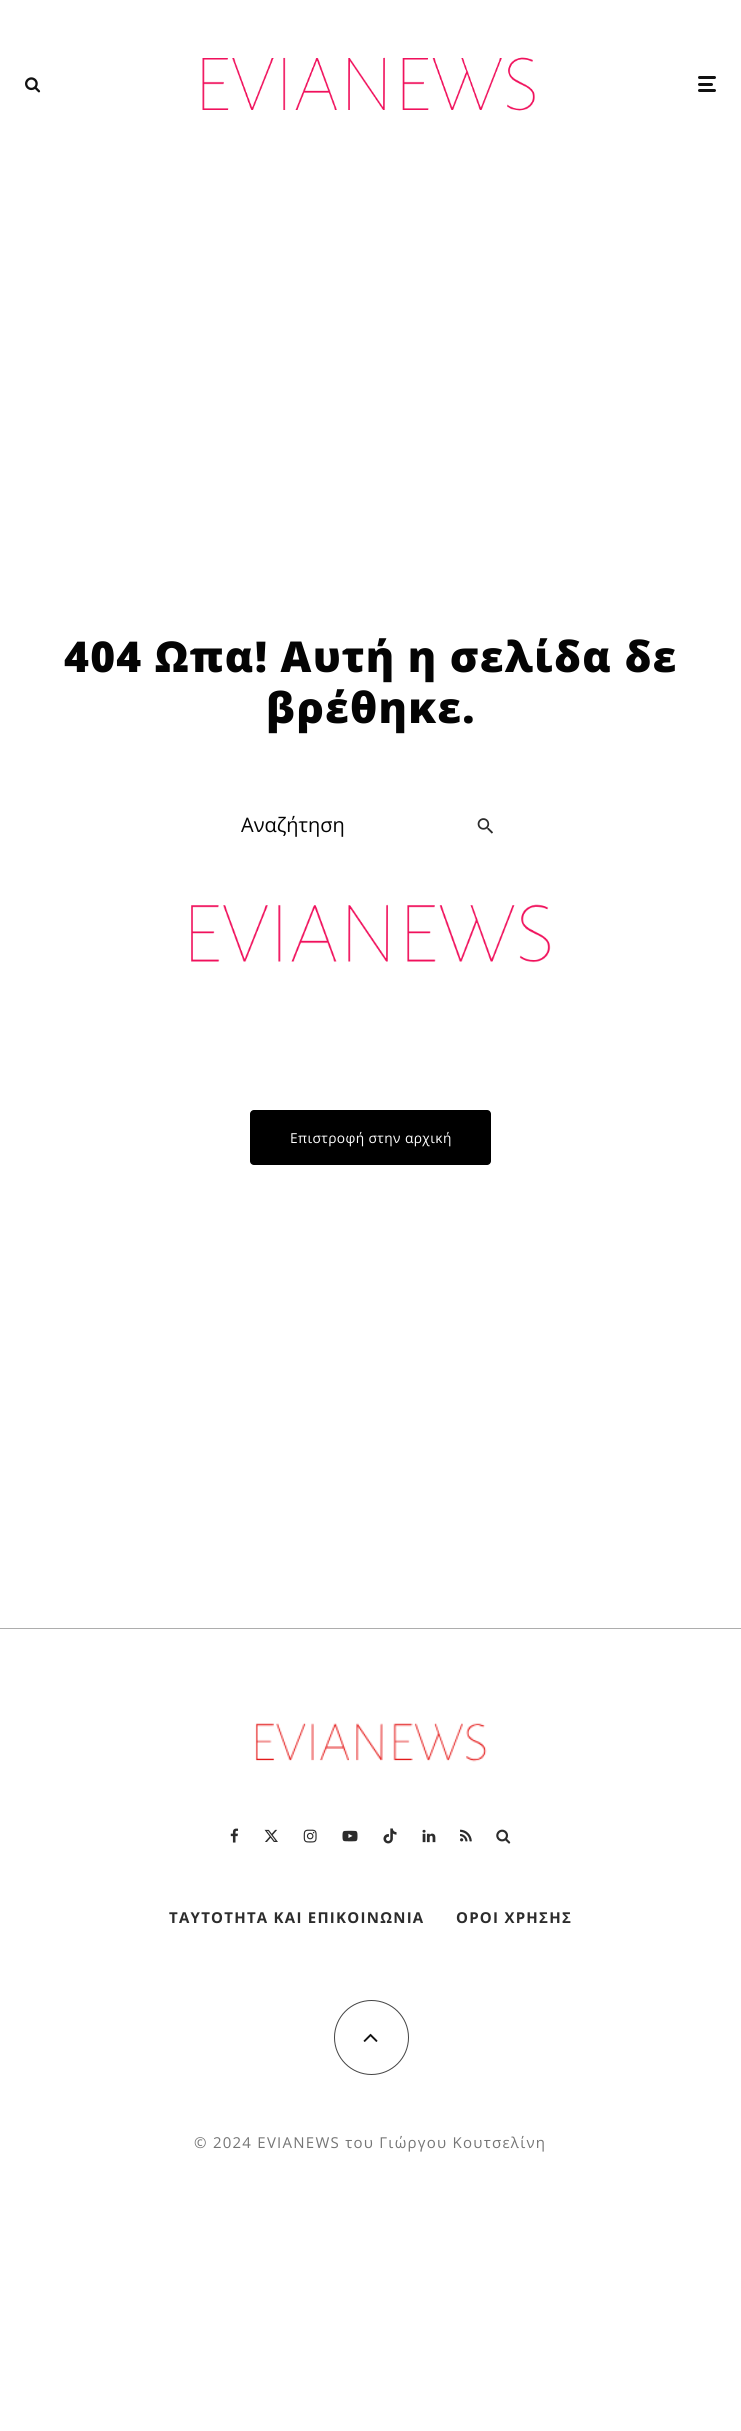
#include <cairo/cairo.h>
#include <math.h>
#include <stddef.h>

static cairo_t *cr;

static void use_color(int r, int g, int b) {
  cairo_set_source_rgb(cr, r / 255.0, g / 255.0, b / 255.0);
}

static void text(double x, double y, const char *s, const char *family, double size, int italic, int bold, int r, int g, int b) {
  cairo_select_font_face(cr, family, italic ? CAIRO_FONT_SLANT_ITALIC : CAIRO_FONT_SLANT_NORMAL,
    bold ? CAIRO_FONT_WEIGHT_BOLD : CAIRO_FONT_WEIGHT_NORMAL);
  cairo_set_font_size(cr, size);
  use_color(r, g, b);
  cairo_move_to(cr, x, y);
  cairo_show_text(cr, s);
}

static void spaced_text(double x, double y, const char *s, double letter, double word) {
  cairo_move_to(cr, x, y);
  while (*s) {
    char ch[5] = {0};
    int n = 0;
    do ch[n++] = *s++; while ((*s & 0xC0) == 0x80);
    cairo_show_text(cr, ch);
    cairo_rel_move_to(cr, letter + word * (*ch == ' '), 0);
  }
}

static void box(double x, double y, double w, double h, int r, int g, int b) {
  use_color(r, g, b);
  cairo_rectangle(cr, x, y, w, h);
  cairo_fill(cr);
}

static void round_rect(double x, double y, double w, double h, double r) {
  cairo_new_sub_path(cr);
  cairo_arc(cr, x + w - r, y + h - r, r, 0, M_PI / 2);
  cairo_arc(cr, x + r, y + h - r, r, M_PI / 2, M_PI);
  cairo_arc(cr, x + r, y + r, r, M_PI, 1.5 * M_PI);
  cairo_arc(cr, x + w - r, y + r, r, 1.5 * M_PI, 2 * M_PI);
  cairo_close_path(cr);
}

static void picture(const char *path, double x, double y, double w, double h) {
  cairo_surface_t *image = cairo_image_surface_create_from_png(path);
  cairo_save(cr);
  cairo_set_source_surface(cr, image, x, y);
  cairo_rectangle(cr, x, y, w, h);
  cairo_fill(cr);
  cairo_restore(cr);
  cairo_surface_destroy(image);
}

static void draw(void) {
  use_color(255, 255, 255);
  cairo_paint(cr);
  picture("img_01.png", 25, 77, 16, 16);
  picture("img_02.png", 202, 57, 333, 54);
  use_color(17, 17, 17);
  round_rect(698, 83, 15, 3, 1.5);
  cairo_fill(cr);
  round_rect(698, 76, 18, 3, 1.5);
  cairo_fill(cr);
  round_rect(698, 89, 18, 3, 1.5);
  cairo_fill(cr);
  picture("img_03.png", 477, 818, 16, 16);
  picture("img_04.png", 191, 904, 360, 59);
  use_color(0, 0, 0);
  round_rect(250, 1110, 241, 55, 4);
  cairo_fill(cr);
  box(0, 1628, 741, 1, 173, 173, 173);
  picture("img_05.png", 255, 1723, 232, 39);
  picture("img_06.png", 230, 1828, 9, 15);
  picture("img_07.png", 264, 1829, 14, 13);
  picture("img_08.png", 303, 1829, 14, 14);
  picture("img_09.png", 342, 1830, 16, 12);
  picture("img_10.png", 383, 1828, 14, 16);
  picture("img_11.png", 422, 1829, 14, 14);
  picture("img_12.png", 460, 1829, 12, 13);
  picture("img_13.png", 496, 1829, 15, 15);
  cairo_arc(cr, 371.5, 2037.5, 37, 0, 2 * M_PI);
  use_color(68, 68, 68);
  cairo_set_line_width(cr, 1);
  cairo_stroke(cr);
  picture("img_14.png", 363, 2033, 15, 9);
  cairo_select_font_face(cr, "Open Sans ExtraBold", CAIRO_FONT_SLANT_NORMAL, CAIRO_FONT_WEIGHT_NORMAL);
  cairo_set_font_size(cr, 42.5);
  use_color(4, 4, 4);
  spaced_text(64, 672, "404 Ωπα! Αυτή η σελίδα δε", 1.25, 0);
  spaced_text(266, 723, "βρέθηκε.", 1.25, 0);
  text(241, 832, "Αναζήτηση", "Open Sans", 20, 0, 0, 4, 4, 4);
  cairo_set_font_size(cr, 13.75);
  use_color(255, 255, 255);
  spaced_text(290, 1143, "Επιστροφή στην αρχική", 0.4, 0);
  cairo_select_font_face(cr, "Open Sans", CAIRO_FONT_SLANT_NORMAL, CAIRO_FONT_WEIGHT_BOLD);
  cairo_set_font_size(cr, 15);
  use_color(44, 44, 44);
  spaced_text(169, 1923, "ΤΑΥΤΟΤΗΤΑ ΚΑΙ ΕΠΙΚΟΙΝΩΝΙΑ", 1.25, 0);
  spaced_text(456, 1923, "ΟΡΟΙ ΧΡΗΣΗΣ", 1.25, 0);
  cairo_select_font_face(cr, "Open Sans", CAIRO_FONT_SLANT_NORMAL, CAIRO_FONT_WEIGHT_NORMAL);
  use_color(117, 117, 117);
  spaced_text(194, 2148, "© 2024 EVIANEWS του Γιώργου Κουτσελίνη", 1.25, 0);
}

int main(void) {
  cairo_surface_t *surface = cairo_image_surface_create(CAIRO_FORMAT_RGB24, 741, 2431);
  cr = cairo_create(surface);
  cairo_font_options_t *options = cairo_font_options_create();
  cairo_font_options_set_hint_metrics(options, CAIRO_HINT_METRICS_OFF);
  cairo_font_options_set_hint_style(options, CAIRO_HINT_STYLE_NONE);
  cairo_set_font_options(cr, options);
  cairo_set_miter_limit(cr, 4);
  draw();
  cairo_surface_write_to_png(surface, "out.png");
  cairo_font_options_destroy(options);
  cairo_destroy(cr);
  cairo_surface_destroy(surface);
  return 0;
}
